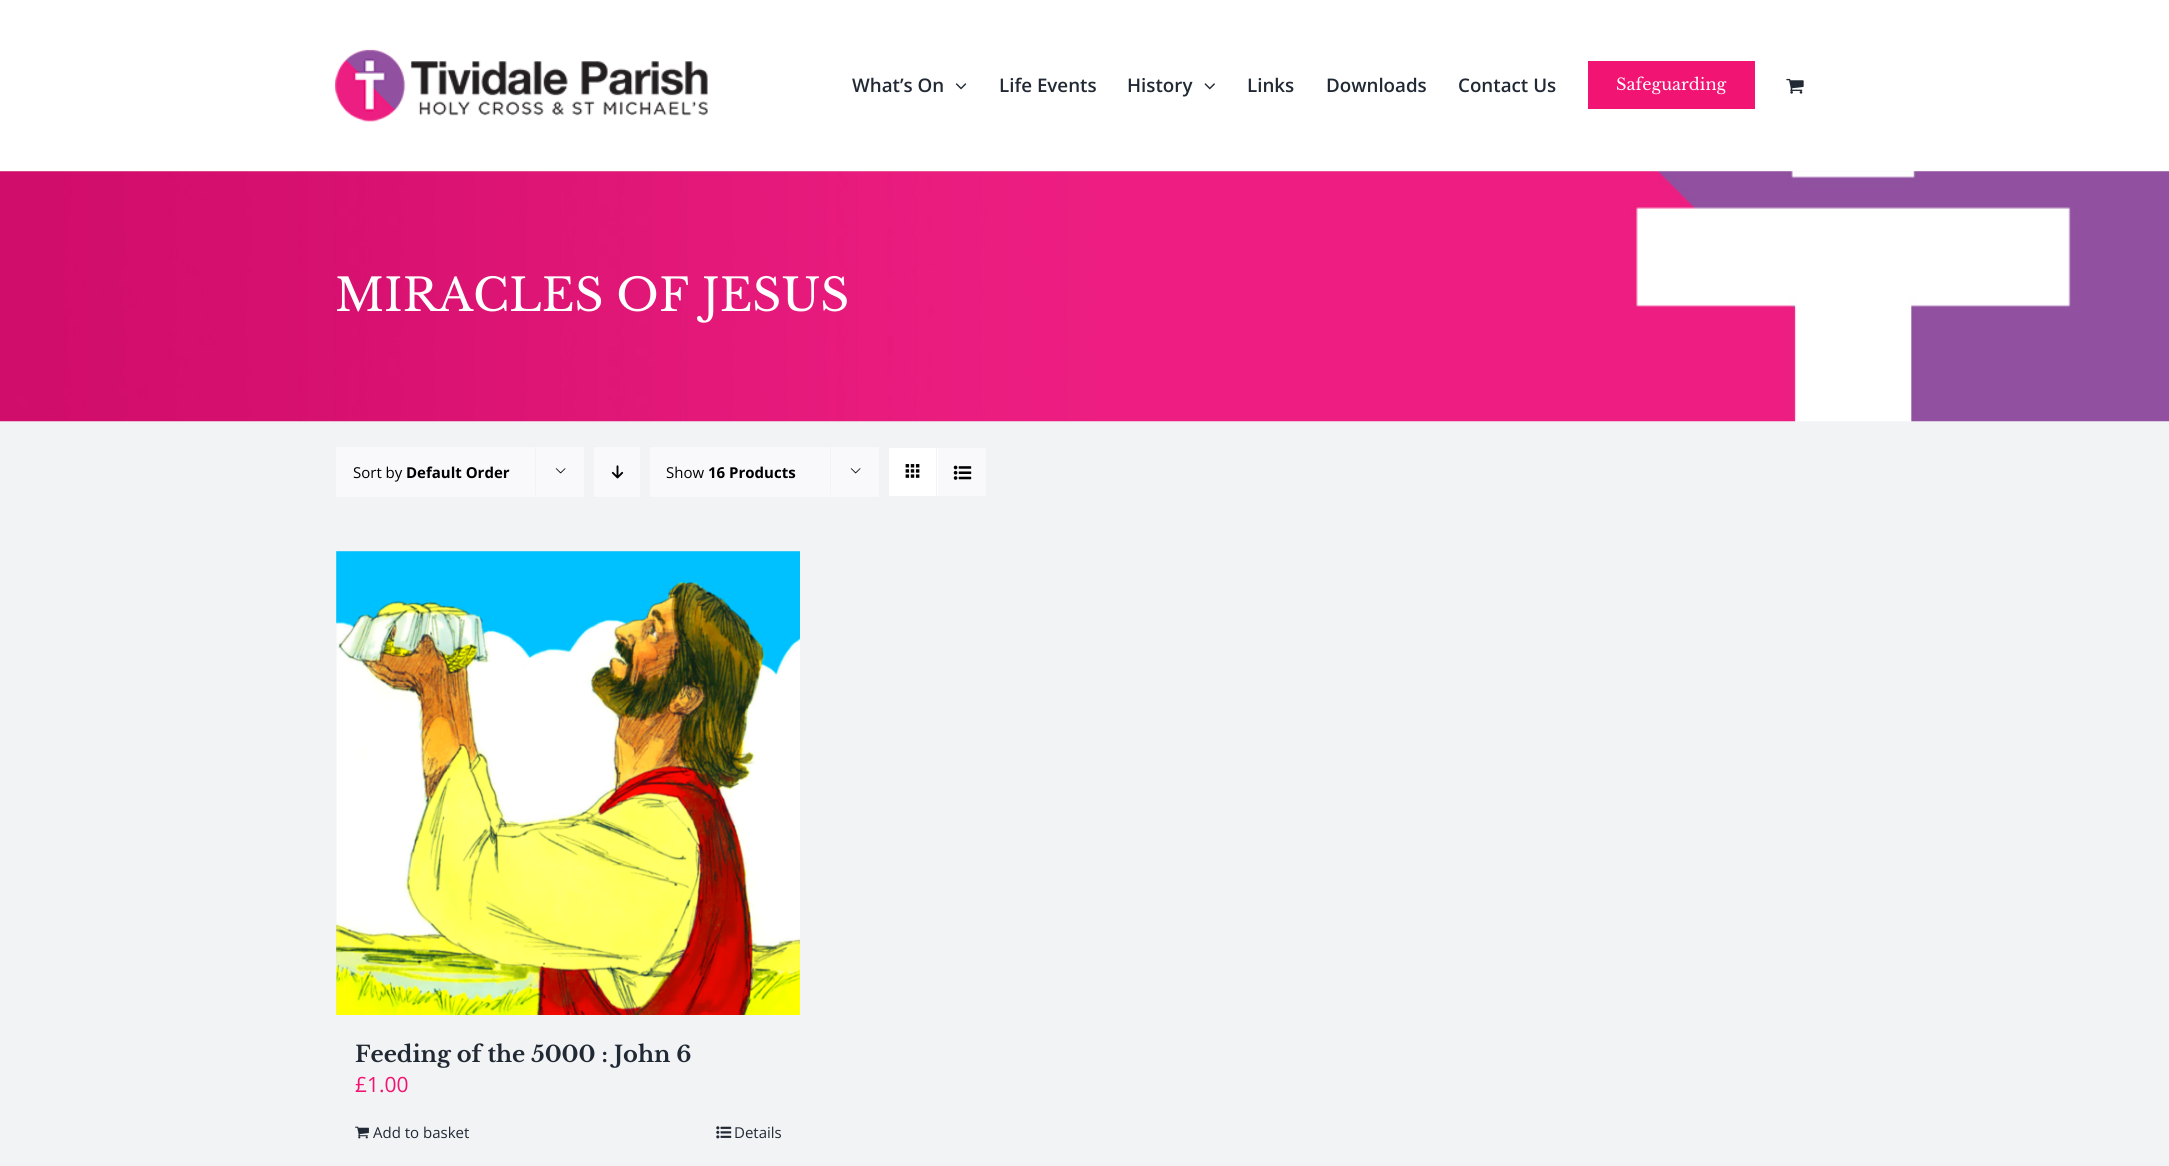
#include <cairo/cairo.h>
#include <math.h>
#include <stddef.h>

static cairo_t *cr;

static void use_color(int r, int g, int b) {
  cairo_set_source_rgb(cr, r / 255.0, g / 255.0, b / 255.0);
}

static void text(double x, double y, const char *s, const char *family, double size, int italic, int bold, int r, int g, int b) {
  cairo_select_font_face(cr, family, italic ? CAIRO_FONT_SLANT_ITALIC : CAIRO_FONT_SLANT_NORMAL,
    bold ? CAIRO_FONT_WEIGHT_BOLD : CAIRO_FONT_WEIGHT_NORMAL);
  cairo_set_font_size(cr, size);
  use_color(r, g, b);
  cairo_move_to(cr, x, y);
  cairo_show_text(cr, s);
}

static void box(double x, double y, double w, double h, int r, int g, int b) {
  use_color(r, g, b);
  cairo_rectangle(cr, x, y, w, h);
  cairo_fill(cr);
}

static void picture(const char *path, double x, double y, double w, double h) {
  cairo_surface_t *image = cairo_image_surface_create_from_png(path);
  cairo_save(cr);
  cairo_set_source_surface(cr, image, x, y);
  cairo_rectangle(cr, x, y, w, h);
  cairo_fill(cr);
  cairo_restore(cr);
  cairo_surface_destroy(image);
}

static void draw(void) {
  use_color(242, 243, 245);
  cairo_paint(cr);
  box(0, 0, 2169, 171, 255, 255, 255);
  picture("img_01.png", 335, 49, 373, 73);
  picture("img_02.png", 955, 83, 12, 7);
  picture("img_03.png", 1204, 83, 11, 7);
  box(1588, 61, 167, 48, 242, 20, 115);
  picture("img_04.png", 1786, 78, 18, 16);
  picture("img_05.png", 0, 171, 2169, 251);
  box(336, 447, 248, 50, 249, 249, 251);
  box(535, 446, 1, 49, 242, 243, 245);
  picture("img_06.png", 555, 468, 11, 6);
  box(594, 447, 46, 50, 249, 249, 251);
  picture("img_07.png", 611, 465, 13, 14);
  box(650, 447, 229, 50, 249, 249, 251);
  box(830, 446, 1, 49, 242, 243, 245);
  picture("img_06.png", 850, 468, 11, 6);
  box(889, 448, 49, 48, 255, 255, 255);
  box(936, 448, 1, 48, 242, 243, 245);
  picture("img_08.png", 905, 464, 15, 14);
  box(938, 448, 48, 48, 249, 249, 251);
  picture("img_09.png", 953, 465, 19, 15);
  box(336, 551, 464, 464, 226, 226, 226);
  picture("img_10.png", 336, 551, 464, 464);
  picture("img_11.png", 355, 1126, 14, 13);
  picture("img_12.png", 716, 1126, 16, 13);
  text(852, 92, "What’s On", "Open Sans SemiBold", 18.75, 0, 0, 33, 41, 52);
  text(999, 92, "Life Events", "Open Sans SemiBold", 18.75, 0, 0, 33, 41, 52);
  text(1127, 92, "History", "Open Sans SemiBold", 18.75, 0, 0, 33, 41, 52);
  text(1247, 92, "Links", "Open Sans SemiBold", 18.75, 0, 0, 33, 41, 52);
  text(1326, 92, "Downloads", "Open Sans SemiBold", 18.75, 0, 0, 33, 41, 52);
  text(1458, 92, "Contact Us", "Open Sans SemiBold", 18.75, 0, 0, 33, 41, 52);
  text(1616, 90, "Safeguarding", "Libre Baskerville", 16.25, 0, 0, 255, 255, 255);
  text(335, 311, "MIRACLES OF JESUS", "Libre Baskerville", 45, 0, 0, 255, 255, 255);
  text(353, 478, "Sort by", "Open Sans", 15, 0, 0, 0, 0, 0);
  text(406, 478, "Default Order", "Open Sans", 15, 0, 1, 0, 0, 0);
  text(666, 478, "Show", "Open Sans", 15, 0, 0, 0, 0, 0);
  text(708, 478, "16 Products", "Open Sans", 15, 0, 1, 0, 0, 0);
  text(355, 1062, "Feeding of the 5000 : John 6", "Libre Baskerville", 22.5, 0, 1, 33, 41, 52);
  text(355, 1092, "£1.00", "Open Sans", 21, 0, 0, 242, 20, 115);
  text(373, 1138, "Add to basket", "Open Sans", 15, 0, 0, 33, 41, 52);
  text(734, 1138, "Details", "Open Sans", 15, 0, 0, 33, 41, 52);
}

int main(void) {
  cairo_surface_t *surface = cairo_image_surface_create(CAIRO_FORMAT_RGB24, 2169, 1166);
  cr = cairo_create(surface);
  cairo_font_options_t *options = cairo_font_options_create();
  cairo_font_options_set_hint_metrics(options, CAIRO_HINT_METRICS_OFF);
  cairo_font_options_set_hint_style(options, CAIRO_HINT_STYLE_NONE);
  cairo_set_font_options(cr, options);
  cairo_set_miter_limit(cr, 4);
  draw();
  cairo_surface_write_to_png(surface, "out.png");
  cairo_font_options_destroy(options);
  cairo_destroy(cr);
  cairo_surface_destroy(surface);
  return 0;
}
